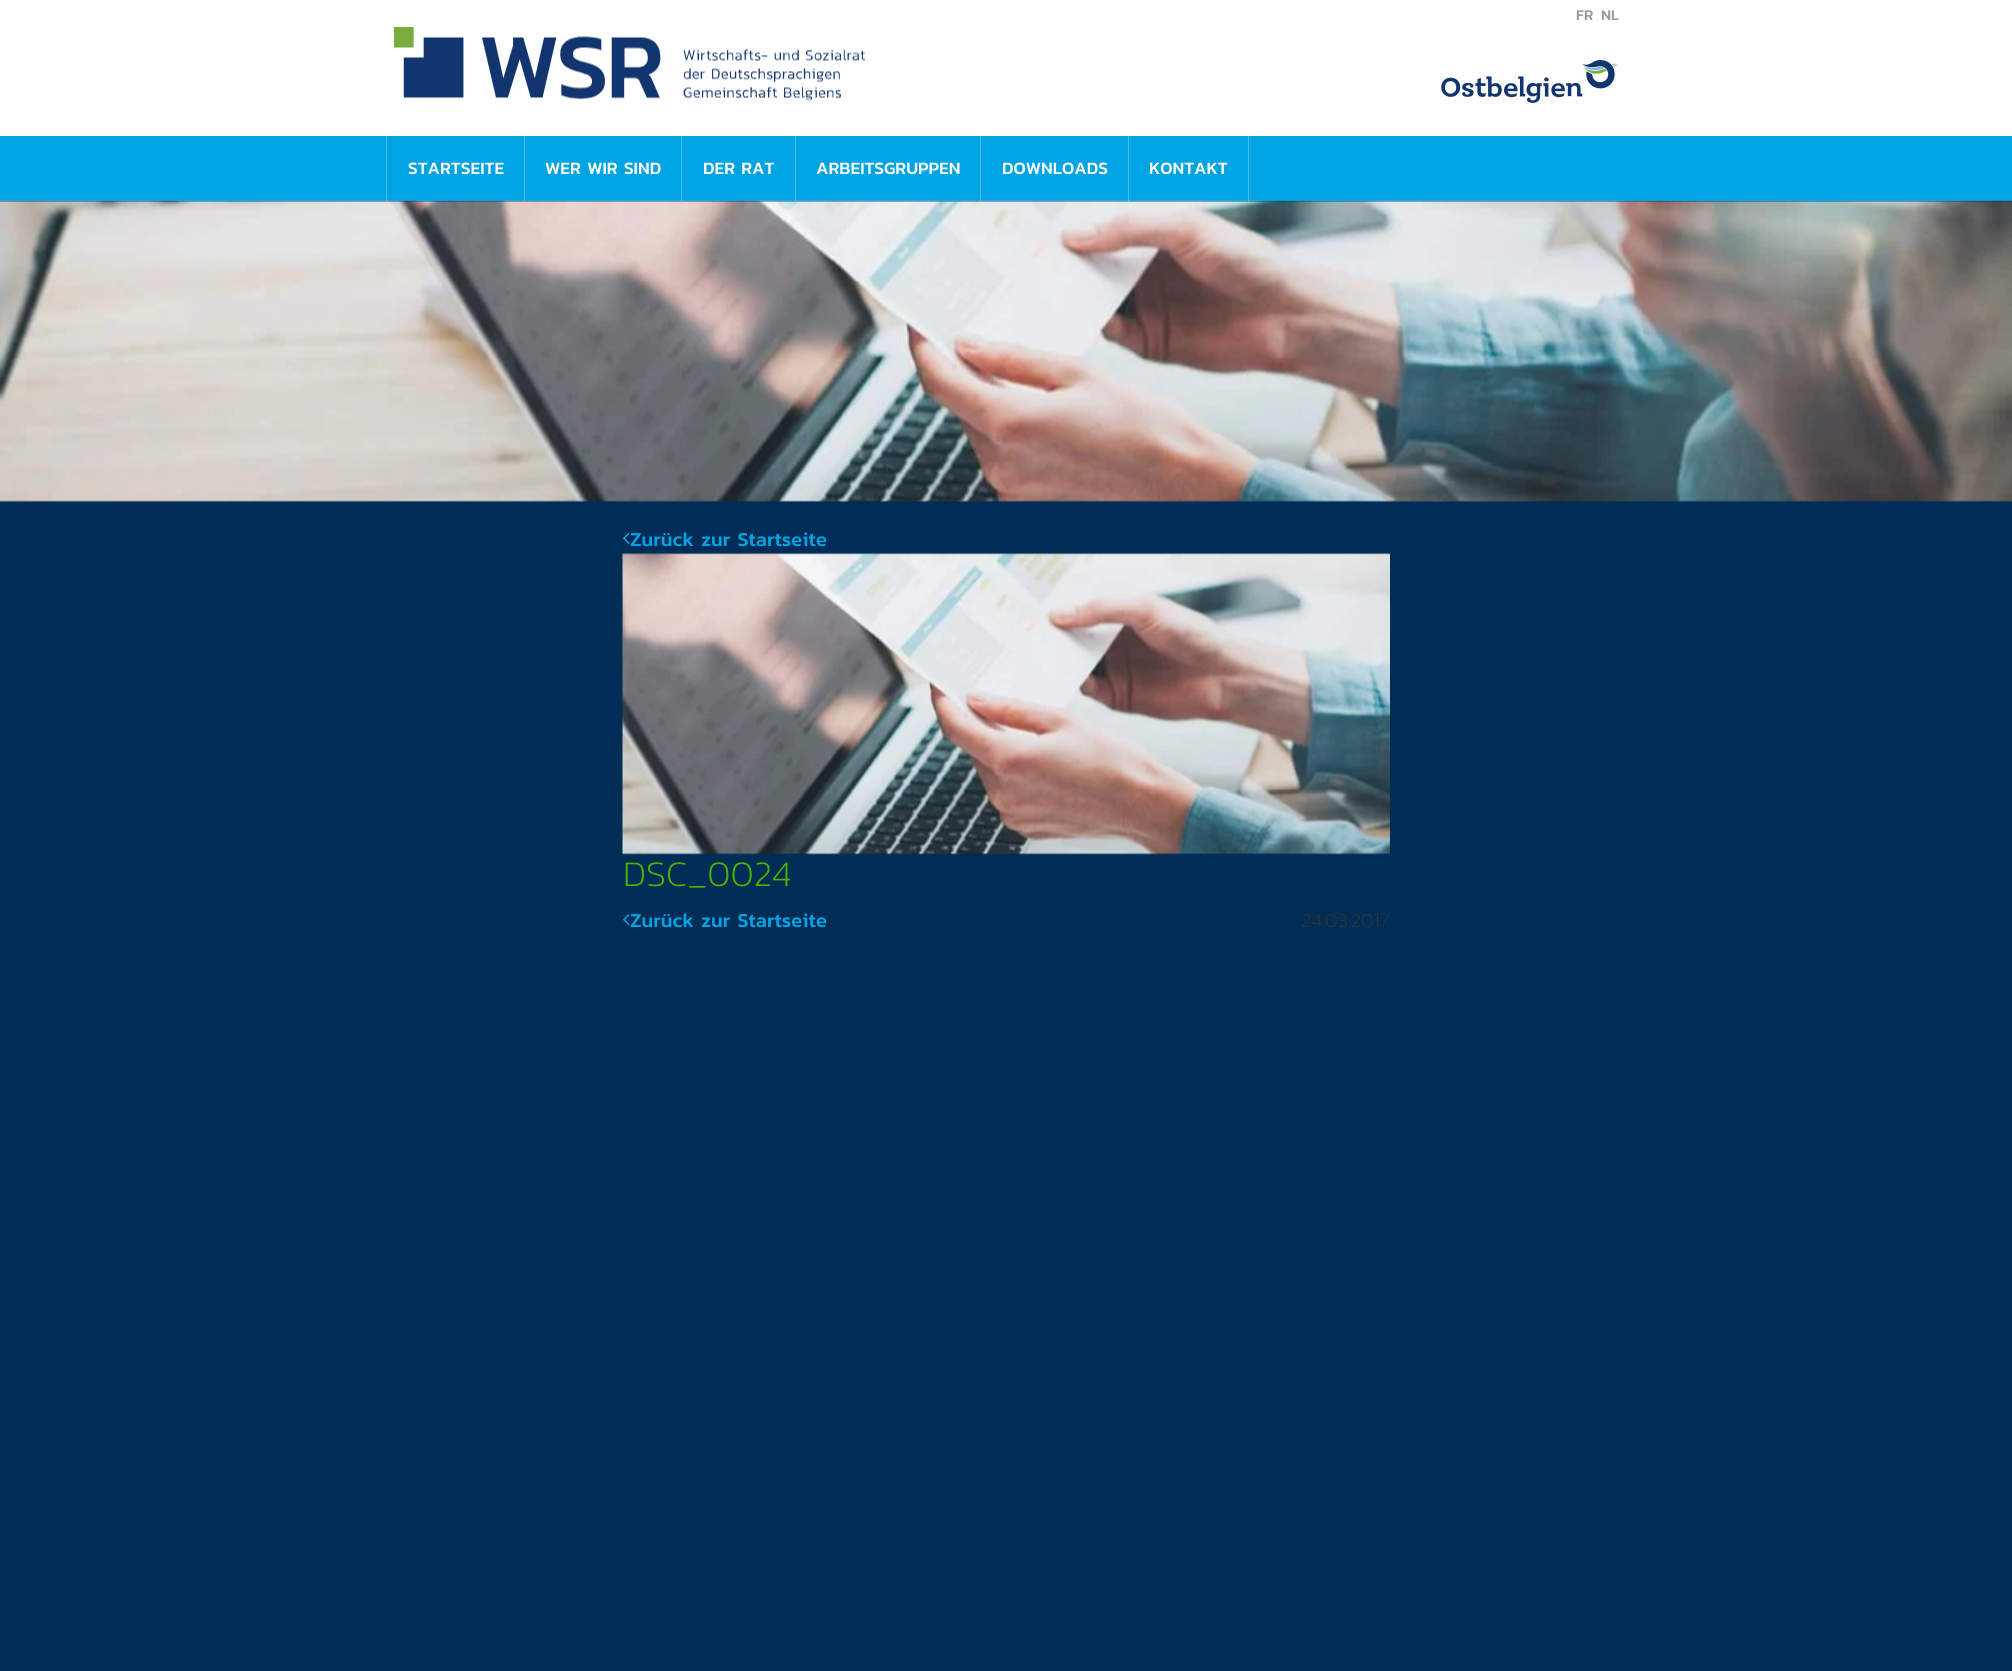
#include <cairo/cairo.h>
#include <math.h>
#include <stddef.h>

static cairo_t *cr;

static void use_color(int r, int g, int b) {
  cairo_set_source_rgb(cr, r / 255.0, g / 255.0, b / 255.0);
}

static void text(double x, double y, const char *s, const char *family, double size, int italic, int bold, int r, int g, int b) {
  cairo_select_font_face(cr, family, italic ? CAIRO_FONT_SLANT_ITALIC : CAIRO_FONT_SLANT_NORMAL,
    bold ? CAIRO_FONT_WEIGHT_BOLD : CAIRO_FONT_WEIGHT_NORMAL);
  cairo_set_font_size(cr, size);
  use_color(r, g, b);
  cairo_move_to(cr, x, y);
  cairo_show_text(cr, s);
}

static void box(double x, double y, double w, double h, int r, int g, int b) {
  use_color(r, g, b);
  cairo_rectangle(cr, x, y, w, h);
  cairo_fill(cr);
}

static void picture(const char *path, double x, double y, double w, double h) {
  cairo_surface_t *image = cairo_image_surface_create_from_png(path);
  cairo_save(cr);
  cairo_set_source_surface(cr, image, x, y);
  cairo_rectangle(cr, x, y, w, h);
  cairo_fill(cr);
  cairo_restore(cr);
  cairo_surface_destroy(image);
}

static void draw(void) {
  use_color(0, 45, 86);
  cairo_paint(cr);
  box(0, 0, 2012, 136, 254, 254, 254);
  picture("img_01.png", 394, 27, 471, 74);
  picture("img_02.png", 1441, 60, 178, 43);
  box(0, 136, 2012, 65, 0, 163, 228);
  picture("img_03.png", 0, 200, 2012, 302);
  cairo_set_source_rgba(cr, 0.996, 0.996, 0.996, 0.3);
  cairo_rectangle(cr, 1248, 136, 1, 65);
  cairo_fill(cr);
  cairo_rectangle(cr, 386, 136, 1, 65);
  cairo_fill(cr);
  cairo_rectangle(cr, 524, 136, 1, 65);
  cairo_fill(cr);
  cairo_rectangle(cr, 681, 136, 1, 65);
  cairo_fill(cr);
  cairo_rectangle(cr, 795, 136, 1, 65);
  cairo_fill(cr);
  cairo_rectangle(cr, 980, 136, 1, 65);
  cairo_fill(cr);
  cairo_rectangle(cr, 1128, 136, 1, 65);
  cairo_fill(cr);
  picture("img_04.png", 623, 532, 7, 12);
  picture("img_05.png", 622, 553, 768, 302);
  picture("img_06.png", 623, 914, 7, 12);
  text(1576, 20, "FR", "Kanit Medium", 15, 0, 0, 153, 153, 153);
  text(1601, 20, "NL", "Kanit Medium", 15, 0, 0, 153, 153, 153);
  text(408, 174, "STARTSEITE", "Kanit Medium", 17.5, 0, 0, 254, 254, 254);
  text(545, 174, "WER WIR SIND", "Kanit Medium", 17.5, 0, 0, 254, 254, 254);
  text(703, 174, "DER RAT", "Kanit Medium", 17.5, 0, 0, 254, 254, 254);
  text(816, 174, "ARBEITSGRUPPEN", "Kanit Medium", 17.5, 0, 0, 254, 254, 254);
  text(1002, 174, "DOWNLOADS", "Kanit Medium", 17.5, 0, 0, 254, 254, 254);
  text(1149, 174, "KONTAKT", "Kanit Medium", 17.5, 0, 0, 254, 254, 254);
  text(630, 546, "Zurück zur Startseite", "Kanit Medium", 20, 0, 0, 0, 163, 228);
  text(623, 886, "DSC_0024", "Kanit ExtraLight", 36.25, 0, 0, 75, 180, 0);
  text(630, 927, "Zurück zur Startseite", "Kanit Medium", 20, 0, 0, 0, 163, 228);
  text(1301, 927, "24.03.2017", "Kanit ExtraLight", 20, 0, 0, 51, 51, 51);
}

int main(void) {
  cairo_surface_t *surface = cairo_image_surface_create(CAIRO_FORMAT_RGB24, 2012, 1671);
  cr = cairo_create(surface);
  cairo_font_options_t *options = cairo_font_options_create();
  cairo_font_options_set_hint_metrics(options, CAIRO_HINT_METRICS_OFF);
  cairo_font_options_set_hint_style(options, CAIRO_HINT_STYLE_NONE);
  cairo_set_font_options(cr, options);
  cairo_set_miter_limit(cr, 4);
  draw();
  cairo_surface_write_to_png(surface, "out.png");
  cairo_font_options_destroy(options);
  cairo_destroy(cr);
  cairo_surface_destroy(surface);
  return 0;
}
